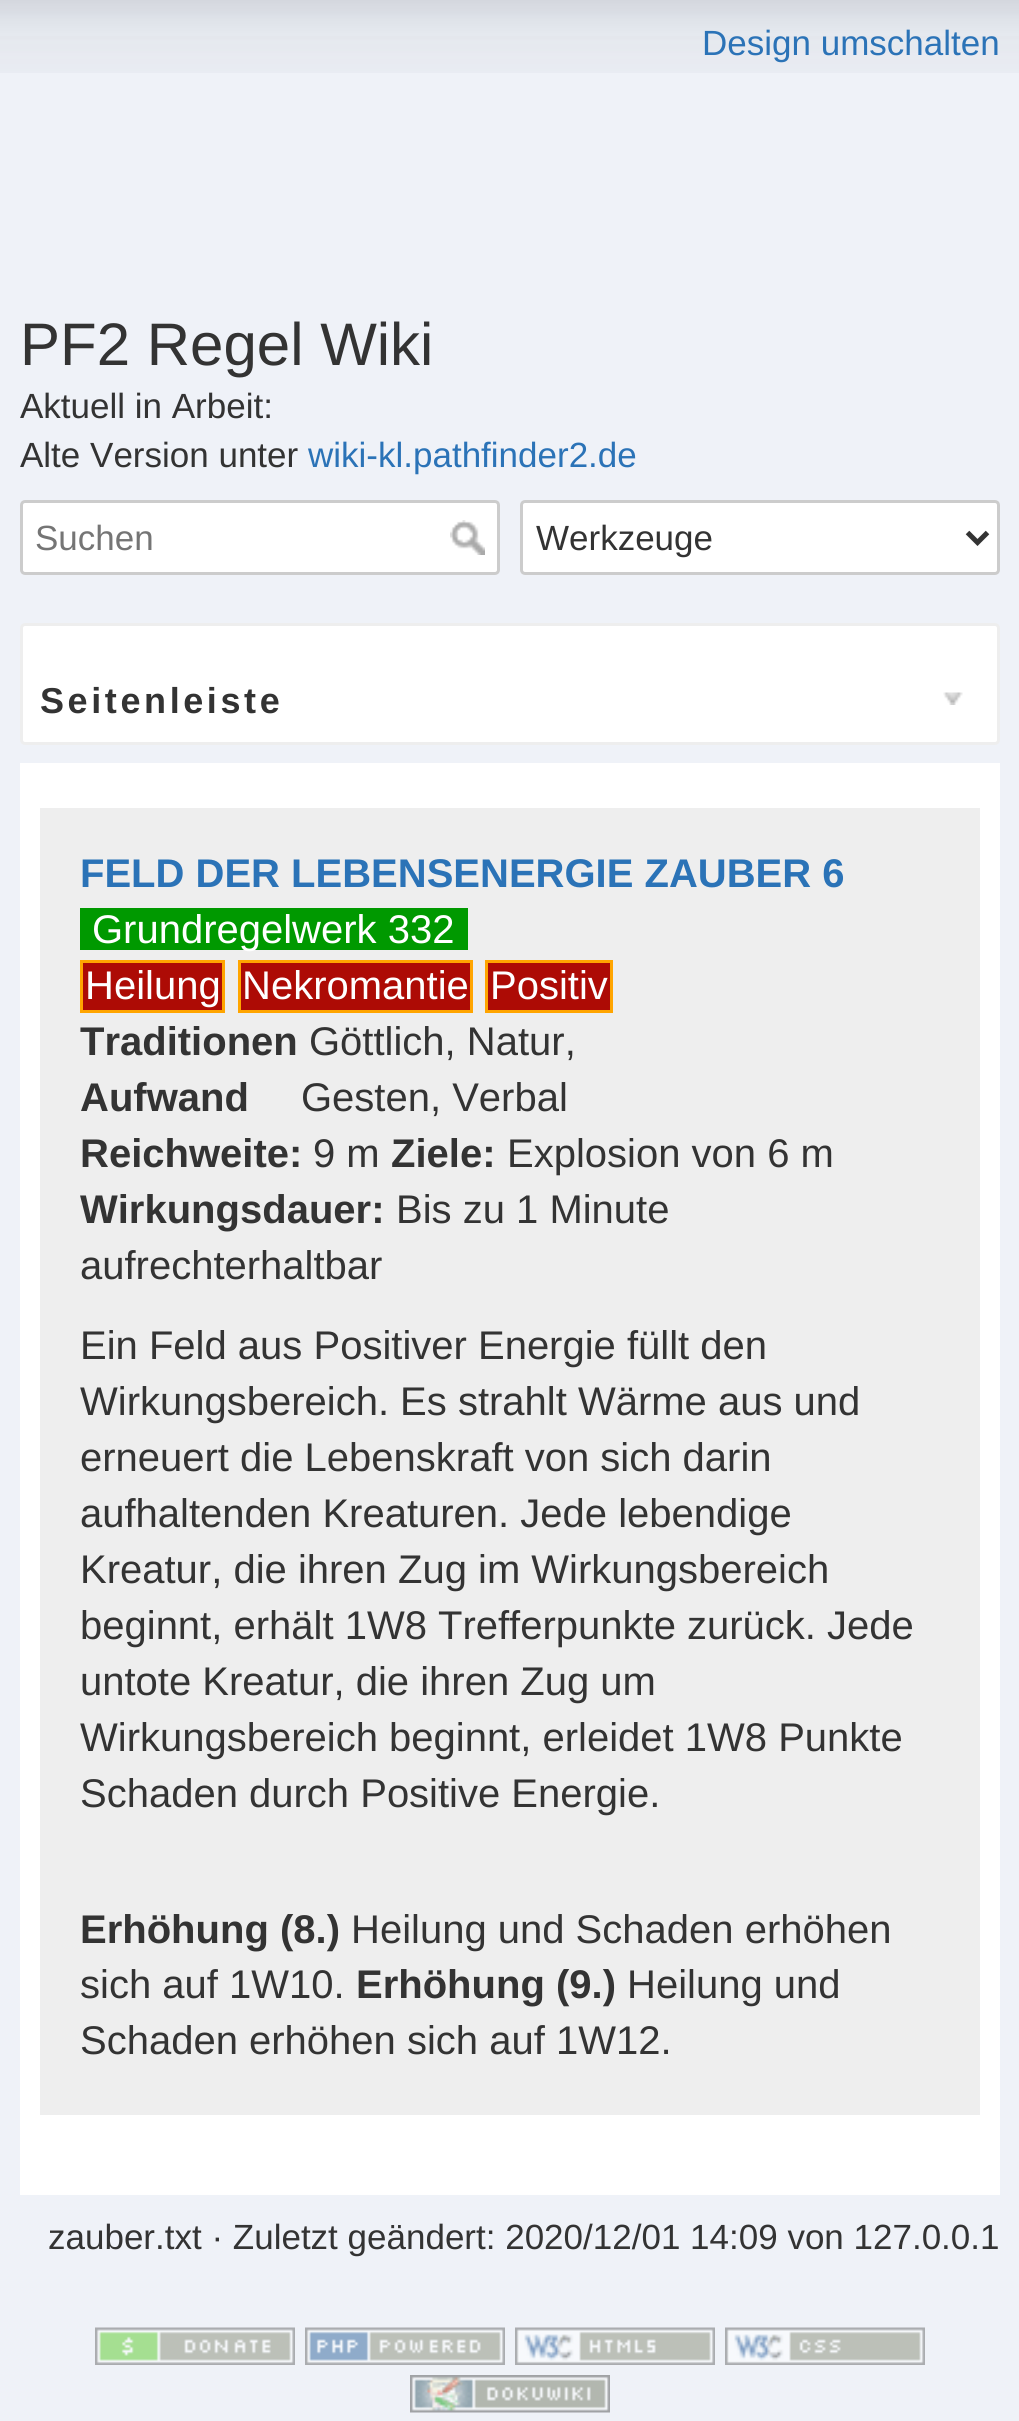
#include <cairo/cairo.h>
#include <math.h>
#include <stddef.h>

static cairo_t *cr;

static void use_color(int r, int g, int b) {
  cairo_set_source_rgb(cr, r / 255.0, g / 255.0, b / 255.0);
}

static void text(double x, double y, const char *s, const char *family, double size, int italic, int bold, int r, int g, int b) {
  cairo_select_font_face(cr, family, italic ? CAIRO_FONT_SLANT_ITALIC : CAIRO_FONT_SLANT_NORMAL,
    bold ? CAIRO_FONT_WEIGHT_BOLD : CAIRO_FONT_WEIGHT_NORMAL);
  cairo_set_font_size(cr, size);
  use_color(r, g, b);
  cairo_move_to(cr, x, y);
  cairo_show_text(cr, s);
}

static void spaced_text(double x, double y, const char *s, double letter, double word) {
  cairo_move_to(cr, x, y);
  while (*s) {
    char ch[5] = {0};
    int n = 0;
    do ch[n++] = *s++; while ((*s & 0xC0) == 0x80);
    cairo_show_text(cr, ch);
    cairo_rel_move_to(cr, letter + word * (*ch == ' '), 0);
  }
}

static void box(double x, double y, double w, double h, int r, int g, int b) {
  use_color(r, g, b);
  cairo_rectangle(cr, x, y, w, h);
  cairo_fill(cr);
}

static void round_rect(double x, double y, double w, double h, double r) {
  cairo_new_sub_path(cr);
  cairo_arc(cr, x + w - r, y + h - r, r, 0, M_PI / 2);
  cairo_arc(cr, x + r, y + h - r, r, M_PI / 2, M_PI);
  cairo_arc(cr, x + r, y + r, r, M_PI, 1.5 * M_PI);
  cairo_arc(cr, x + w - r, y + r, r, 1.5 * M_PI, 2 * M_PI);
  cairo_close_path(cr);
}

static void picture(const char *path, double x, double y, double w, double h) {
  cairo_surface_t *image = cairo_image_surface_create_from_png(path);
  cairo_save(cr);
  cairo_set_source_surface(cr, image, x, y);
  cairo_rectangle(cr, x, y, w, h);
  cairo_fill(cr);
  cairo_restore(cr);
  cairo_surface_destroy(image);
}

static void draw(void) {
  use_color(239, 242, 248);
  cairo_paint(cr);
  picture("img_01.png", 0, 0, 1019, 73);
  use_color(255, 255, 255);
  round_rect(21.5, 501.5, 477, 72, 3.5);
  cairo_fill_preserve(cr);
  use_color(204, 204, 204);
  cairo_set_line_width(cr, 3);
  cairo_stroke(cr);
  picture("img_02.png", 450, 520, 35, 35);
  use_color(255, 255, 255);
  round_rect(521.5, 501.5, 477, 72, 3.5);
  cairo_fill_preserve(cr);
  use_color(204, 204, 204);
  cairo_stroke(cr);
  cairo_new_path(cr);
  cairo_move_to(cr, 967.5, 532.5);
  cairo_line_to(cr, 977.5, 542.5);
  cairo_line_to(cr, 987.5, 532.5);
  use_color(51, 51, 51);
  cairo_set_line_width(cr, 5);
  cairo_stroke(cr);
  use_color(255, 255, 255);
  round_rect(21.5, 624.5, 977, 119, 3.5);
  cairo_fill_preserve(cr);
  use_color(238, 238, 238);
  cairo_set_line_width(cr, 3);
  cairo_stroke(cr);
  picture("img_03.png", 943, 692, 20, 13);
  box(20, 763, 980, 1432, 255, 255, 255);
  box(40, 808, 940, 1307, 238, 238, 238);
  box(80, 908, 388, 42, 0, 153, 0);
  use_color(173, 11, 5);
  cairo_rectangle(cr, 81.5, 961.5, 142, 50);
  cairo_fill_preserve(cr);
  use_color(255, 165, 0);
  cairo_stroke(cr);
  use_color(173, 11, 5);
  cairo_rectangle(cr, 239.5, 961.5, 232, 50);
  cairo_fill_preserve(cr);
  use_color(255, 165, 0);
  cairo_stroke(cr);
  use_color(173, 11, 5);
  cairo_rectangle(cr, 486.5, 961.5, 125, 50);
  cairo_fill_preserve(cr);
  use_color(255, 165, 0);
  cairo_stroke(cr);
  picture("img_04.png", 95, 2327, 200, 38);
  picture("img_05.png", 305, 2327, 200, 38);
  picture("img_06.png", 515, 2327, 200, 38);
  picture("img_07.png", 725, 2327, 200, 38);
  picture("img_08.png", 410, 2375, 200, 38);
  text(702, 55, "Design umschalten", "Liberation Sans", 35, 0, 0, 43, 115, 183);
  text(20, 365, "PF2 Regel Wiki", "Liberation Sans", 60, 0, 0, 51, 51, 51);
  text(20, 418, "Aktuell in Arbeit:", "Liberation Sans", 35, 0, 0, 51, 51, 51);
  text(20, 467, "Alte Version unter", "Liberation Sans", 35, 0, 0, 51, 51, 51);
  text(308, 467, "wiki-kl.pathfinder2.de", "Liberation Sans", 35, 0, 0, 43, 115, 183);
  text(35, 550, "Suchen", "Liberation Sans", 35, 0, 0, 117, 117, 117);
  text(536, 550, "Werkzeuge", "Liberation Sans", 35, 0, 0, 51, 51, 51);
  cairo_select_font_face(cr, "Liberation Sans", CAIRO_FONT_SLANT_NORMAL, CAIRO_FONT_WEIGHT_BOLD);
  cairo_set_font_size(cr, 36);
  spaced_text(40, 713, "Seitenleiste", 3.6, 0);
  text(80, 887, "FELD DER LEBENSENERGIE ZAUBER 6", "Liberation Sans", 40, 0, 1, 43, 115, 183);
  text(92, 943, "Grundregelwerk 332", "Liberation Sans", 40, 0, 0, 255, 255, 255);
  text(85, 999, "Heilung", "Liberation Sans", 40, 0, 0, 255, 255, 255);
  text(242, 999, "Nekromantie", "Liberation Sans", 40, 0, 0, 255, 255, 255);
  text(490, 999, "Positiv", "Liberation Sans", 40, 0, 0, 255, 255, 255);
  text(80, 1055, "Traditionen", "Liberation Sans", 40, 0, 1, 51, 51, 51);
  text(309, 1055, "Göttlich, Natur,", "Liberation Sans", 40, 0, 0, 51, 51, 51);
  text(80, 1111, "Aufwand", "Liberation Sans", 40, 0, 1, 51, 51, 51);
  text(301, 1111, "Gesten, Verbal", "Liberation Sans", 40, 0, 0, 51, 51, 51);
  text(80, 1167, "Reichweite:", "Liberation Sans", 40, 0, 1, 51, 51, 51);
  text(313, 1167, "9 m", "Liberation Sans", 40, 0, 0, 51, 51, 51);
  text(391, 1167, "Ziele:", "Liberation Sans", 40, 0, 1, 51, 51, 51);
  text(507, 1167, "Explosion von 6 m", "Liberation Sans", 40, 0, 0, 51, 51, 51);
  text(80, 1223, "Wirkungsdauer:", "Liberation Sans", 40, 0, 1, 51, 51, 51);
  text(396, 1223, "Bis zu 1 Minute", "Liberation Sans", 40, 0, 0, 51, 51, 51);
  text(80, 1279, "aufrechterhaltbar", "Liberation Sans", 40, 0, 0, 51, 51, 51);
  text(80, 1359, "Ein Feld aus Positiver Energie füllt den", "Liberation Sans", 40, 0, 0, 51, 51, 51);
  text(80, 1415, "Wirkungsbereich. Es strahlt Wärme aus und", "Liberation Sans", 40, 0, 0, 51, 51, 51);
  text(80, 1471, "erneuert die Lebenskraft von sich darin", "Liberation Sans", 40, 0, 0, 51, 51, 51);
  text(80, 1527, "aufhaltenden Kreaturen. Jede lebendige", "Liberation Sans", 40, 0, 0, 51, 51, 51);
  text(80, 1583, "Kreatur, die ihren Zug im Wirkungsbereich", "Liberation Sans", 40, 0, 0, 51, 51, 51);
  text(80, 1639, "beginnt, erhält 1W8 Trefferpunkte zurück. Jede", "Liberation Sans", 40, 0, 0, 51, 51, 51);
  text(80, 1695, "untote Kreatur, die ihren Zug um", "Liberation Sans", 40, 0, 0, 51, 51, 51);
  text(80, 1751, "Wirkungsbereich beginnt, erleidet 1W8 Punkte", "Liberation Sans", 40, 0, 0, 51, 51, 51);
  text(80, 1807, "Schaden durch Positive Energie.", "Liberation Sans", 40, 0, 0, 51, 51, 51);
  text(80, 1943, "Erhöhung (8.)", "Liberation Sans", 40, 0, 1, 51, 51, 51);
  text(351, 1943, "Heilung und Schaden erhöhen", "Liberation Sans", 40, 0, 0, 51, 51, 51);
  text(80, 1998, "sich auf 1W10.", "Liberation Sans", 40, 0, 0, 51, 51, 51);
  text(356, 1998, "Erhöhung (9.)", "Liberation Sans", 40, 0, 1, 51, 51, 51);
  text(627, 1998, "Heilung und", "Liberation Sans", 40, 0, 0, 51, 51, 51);
  text(80, 2054, "Schaden erhöhen sich auf 1W12.", "Liberation Sans", 40, 0, 0, 51, 51, 51);
  text(48, 2249, "zauber.txt · Zuletzt geändert: 2020/12/01 14:09 von 127.0.0.1", "Liberation Sans", 35, 0, 0, 51, 51, 51);
}

int main(void) {
  cairo_surface_t *surface = cairo_image_surface_create(CAIRO_FORMAT_RGB24, 1019, 2421);
  cr = cairo_create(surface);
  cairo_font_options_t *options = cairo_font_options_create();
  cairo_font_options_set_hint_metrics(options, CAIRO_HINT_METRICS_OFF);
  cairo_font_options_set_hint_style(options, CAIRO_HINT_STYLE_NONE);
  cairo_set_font_options(cr, options);
  cairo_set_miter_limit(cr, 4);
  draw();
  cairo_surface_write_to_png(surface, "out.png");
  cairo_font_options_destroy(options);
  cairo_destroy(cr);
  cairo_surface_destroy(surface);
  return 0;
}
